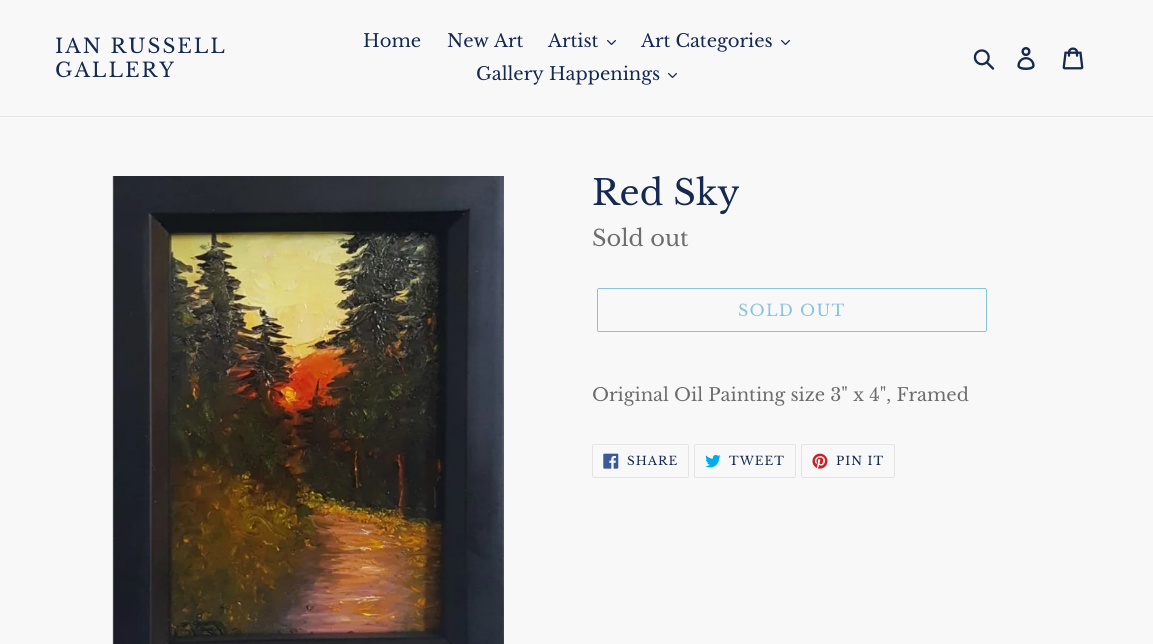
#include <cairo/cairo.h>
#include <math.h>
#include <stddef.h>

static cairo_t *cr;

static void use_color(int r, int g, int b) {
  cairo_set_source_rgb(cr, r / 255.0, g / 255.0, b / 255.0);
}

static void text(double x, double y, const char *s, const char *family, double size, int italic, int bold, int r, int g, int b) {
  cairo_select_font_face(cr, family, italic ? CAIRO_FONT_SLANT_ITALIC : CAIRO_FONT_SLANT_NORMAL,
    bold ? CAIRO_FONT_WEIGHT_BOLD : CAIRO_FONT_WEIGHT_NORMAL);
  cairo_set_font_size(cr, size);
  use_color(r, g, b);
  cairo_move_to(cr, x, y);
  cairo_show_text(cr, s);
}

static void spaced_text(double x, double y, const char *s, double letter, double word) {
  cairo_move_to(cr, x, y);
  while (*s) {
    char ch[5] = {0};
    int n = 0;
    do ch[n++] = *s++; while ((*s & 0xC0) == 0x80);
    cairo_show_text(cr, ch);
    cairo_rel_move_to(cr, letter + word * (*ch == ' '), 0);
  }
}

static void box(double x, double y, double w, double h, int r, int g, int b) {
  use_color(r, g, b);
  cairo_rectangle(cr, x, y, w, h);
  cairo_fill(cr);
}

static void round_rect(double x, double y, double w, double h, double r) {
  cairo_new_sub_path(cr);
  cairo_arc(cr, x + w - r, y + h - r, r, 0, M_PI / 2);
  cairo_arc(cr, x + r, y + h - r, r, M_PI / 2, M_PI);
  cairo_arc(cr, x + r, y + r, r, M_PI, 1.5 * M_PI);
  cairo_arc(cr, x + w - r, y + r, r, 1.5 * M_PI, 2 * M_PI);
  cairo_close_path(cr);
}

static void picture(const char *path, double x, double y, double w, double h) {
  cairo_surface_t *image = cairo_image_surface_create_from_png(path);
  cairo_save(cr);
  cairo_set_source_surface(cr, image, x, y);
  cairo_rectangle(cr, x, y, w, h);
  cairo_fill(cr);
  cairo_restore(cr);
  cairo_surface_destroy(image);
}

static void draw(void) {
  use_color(248, 248, 248);
  cairo_paint(cr);
  box(0, 116, 1153, 1, 228, 228, 228);
  picture("img_01.png", 607, 40, 9, 5);
  picture("img_01.png", 781, 40, 9, 5);
  picture("img_01.png", 668, 73, 9, 5);
  picture("img_02.png", 973, 49, 22, 21);
  picture("img_03.png", 1017, 47, 18, 23);
  picture("img_04.png", 1062, 47, 22, 23);
  picture("img_05.png", 112, 176, 392, 468);
  round_rect(597.5, 288.5, 389, 43, 1.5);
  use_color(137, 196, 223);
  cairo_set_line_width(cr, 1);
  cairo_stroke(cr);
  round_rect(592.5, 444.5, 96, 33, 1.5);
  use_color(228, 228, 228);
  cairo_stroke(cr);
  picture("img_06.png", 603, 453, 16, 16);
  round_rect(694.5, 444.5, 101, 33, 1.5);
  cairo_stroke(cr);
  picture("img_07.png", 705, 454, 16, 14);
  round_rect(801.5, 444.5, 93, 33, 1.5);
  cairo_stroke(cr);
  picture("img_08.png", 812, 453, 16, 16);
  cairo_select_font_face(cr, "Libre Baskerville", CAIRO_FONT_SLANT_NORMAL, CAIRO_FONT_WEIGHT_NORMAL);
  cairo_set_font_size(cr, 20);
  use_color(22, 41, 80);
  spaced_text(55, 53, "IAN RUSSELL", 2, 0);
  spaced_text(55, 77, "GALLERY", 2, 0);
  text(363, 47, "Home", "Libre Baskerville", 18, 0, 0, 22, 41, 80);
  text(447, 47, "New Art", "Libre Baskerville", 18, 0, 0, 22, 41, 80);
  text(548, 47, "Artist", "Libre Baskerville", 18, 0, 0, 22, 41, 80);
  text(641, 47, "Art Categories", "Libre Baskerville", 18, 0, 0, 22, 41, 80);
  text(476, 80, "Gallery Happenings", "Libre Baskerville", 18, 0, 0, 22, 41, 80);
  text(592, 205, "Red Sky", "Libre Baskerville", 35, 0, 0, 22, 41, 80);
  text(592, 246, "Sold out", "Libre Baskerville", 22.5, 0, 0, 109, 109, 109);
  cairo_set_font_size(cr, 16);
  use_color(137, 196, 223);
  spaced_text(738, 316, "SOLD OUT", 1.25, 0);
  text(592, 401, "Original Oil Painting size 3\" x 4\", Framed", "Libre Baskerville", 18, 0, 0, 109, 109, 109);
  cairo_set_font_size(cr, 12);
  use_color(22, 41, 80);
  spaced_text(627, 465, "SHARE", 1, 0);
  spaced_text(729, 465, "TWEET", 1, 0);
  spaced_text(836, 465, "PIN IT", 1, 0);
}

int main(void) {
  cairo_surface_t *surface = cairo_image_surface_create(CAIRO_FORMAT_RGB24, 1153, 644);
  cr = cairo_create(surface);
  cairo_font_options_t *options = cairo_font_options_create();
  cairo_font_options_set_hint_metrics(options, CAIRO_HINT_METRICS_OFF);
  cairo_font_options_set_hint_style(options, CAIRO_HINT_STYLE_NONE);
  cairo_set_font_options(cr, options);
  cairo_set_miter_limit(cr, 4);
  draw();
  cairo_surface_write_to_png(surface, "out.png");
  cairo_font_options_destroy(options);
  cairo_destroy(cr);
  cairo_surface_destroy(surface);
  return 0;
}
